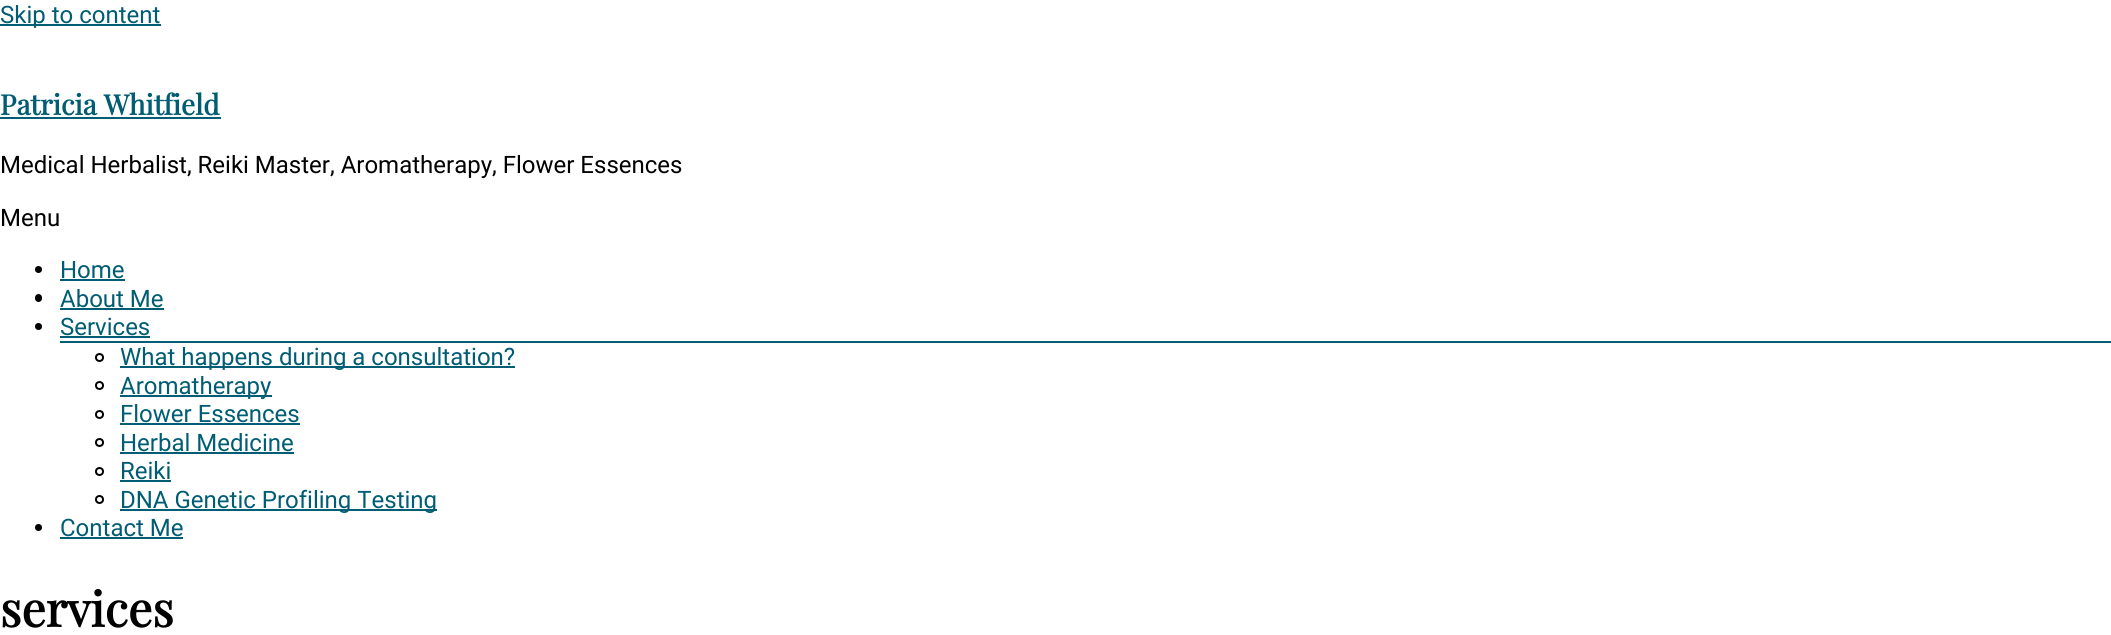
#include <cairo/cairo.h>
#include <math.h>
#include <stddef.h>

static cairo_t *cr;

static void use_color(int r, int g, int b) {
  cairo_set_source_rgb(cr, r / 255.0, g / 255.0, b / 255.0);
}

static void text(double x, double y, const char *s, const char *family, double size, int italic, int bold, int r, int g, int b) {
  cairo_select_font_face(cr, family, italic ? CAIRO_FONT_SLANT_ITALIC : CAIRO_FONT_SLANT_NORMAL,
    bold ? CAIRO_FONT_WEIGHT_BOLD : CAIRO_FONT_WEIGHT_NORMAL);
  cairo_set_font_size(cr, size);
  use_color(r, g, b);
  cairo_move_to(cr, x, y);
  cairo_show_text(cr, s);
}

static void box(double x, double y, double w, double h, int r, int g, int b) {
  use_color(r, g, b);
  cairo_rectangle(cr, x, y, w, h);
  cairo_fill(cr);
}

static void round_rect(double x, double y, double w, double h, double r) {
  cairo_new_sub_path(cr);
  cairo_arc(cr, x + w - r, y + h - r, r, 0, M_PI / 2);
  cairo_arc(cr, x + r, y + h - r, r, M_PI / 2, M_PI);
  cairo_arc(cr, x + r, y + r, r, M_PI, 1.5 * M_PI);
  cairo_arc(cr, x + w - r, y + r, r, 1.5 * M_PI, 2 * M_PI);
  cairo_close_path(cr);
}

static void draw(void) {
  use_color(255, 255, 255);
  cairo_paint(cr);
  box(0, 24, 161, 2, 0, 93, 116);
  box(0, 117, 221, 2, 0, 93, 116);
  use_color(0, 0, 0);
  cairo_arc(cr, 38.5, 269.5, 3.5, 0, 2 * M_PI);
  cairo_fill(cr);
  box(60, 279, 65, 2, 0, 93, 116);
  use_color(0, 0, 0);
  round_rect(35, 294, 7, 8, 3.5);
  cairo_fill(cr);
  box(60, 308, 104, 2, 0, 93, 116);
  use_color(0, 0, 0);
  cairo_arc(cr, 38.5, 326.5, 3.5, 0, 2 * M_PI);
  cairo_fill(cr);
  box(60, 336, 90, 2, 0, 93, 116);
  box(60, 341, 2051, 2, 0, 93, 116);
  cairo_arc(cr, 99.5, 357.5, 3.5, 0, 2 * M_PI);
  use_color(0, 0, 0);
  cairo_stroke(cr);
  box(120, 366, 395, 2, 0, 93, 116);
  cairo_arc(cr, 99.5, 385.5, 3.5, 0, 2 * M_PI);
  use_color(0, 0, 0);
  cairo_stroke(cr);
  box(120, 395, 152, 2, 0, 93, 116);
  cairo_arc(cr, 99.5, 414.5, 3.5, 0, 2 * M_PI);
  use_color(0, 0, 0);
  cairo_stroke(cr);
  box(120, 423, 180, 2, 0, 93, 116);
  cairo_arc(cr, 99.5, 442.5, 3.5, 0, 2 * M_PI);
  use_color(0, 0, 0);
  cairo_stroke(cr);
  box(120, 452, 174, 2, 0, 93, 116);
  cairo_arc(cr, 99.5, 471.5, 3.5, 0, 2 * M_PI);
  use_color(0, 0, 0);
  cairo_stroke(cr);
  box(120, 480, 51, 2, 0, 93, 116);
  cairo_arc(cr, 99.5, 499.5, 3.5, 0, 2 * M_PI);
  use_color(0, 0, 0);
  cairo_stroke(cr);
  box(120, 509, 317, 2, 0, 93, 116);
  use_color(0, 0, 0);
  cairo_arc(cr, 38.5, 527.5, 3.5, 0, 2 * M_PI);
  cairo_fill(cr);
  box(60, 537, 123, 2, 0, 93, 116);
  text(0, 23, "Skip to content", "Roboto", 24, 0, 0, 0, 93, 116);
  text(0, 115, "Patricia Whitfield", "Playfair Display", 28, 0, 1, 0, 93, 116);
  text(0, 173, "Medical Herbalist, Reiki Master, Aromatherapy, Flower Essences", "Roboto", 24, 0, 0, 0, 0, 0);
  text(0, 226, "Menu", "Roboto", 24, 0, 0, 0, 0, 0);
  text(60, 278, "Home", "Roboto", 24, 0, 0, 0, 93, 116);
  text(60, 307, "About Me", "Roboto", 24, 0, 0, 0, 93, 116);
  text(60, 335, "Services", "Roboto", 24, 0, 0, 0, 93, 116);
  text(120, 365, "What happens during a consultation?", "Roboto", 24, 0, 0, 0, 93, 116);
  text(120, 394, "Aromatherapy", "Roboto", 24, 0, 0, 0, 93, 116);
  text(120, 422, "Flower Essences", "Roboto", 24, 0, 0, 0, 93, 116);
  text(120, 451, "Herbal Medicine", "Roboto", 24, 0, 0, 0, 93, 116);
  text(120, 479, "Reiki", "Roboto", 24, 0, 0, 0, 93, 116);
  text(120, 508, "DNA Genetic Profiling Testing", "Roboto", 24, 0, 0, 0, 93, 116);
  text(60, 536, "Contact Me", "Roboto", 24, 0, 0, 0, 93, 116);
  text(0, 627, "services", "Playfair Display", 48, 0, 1, 0, 0, 0);
}

int main(void) {
  cairo_surface_t *surface = cairo_image_surface_create(CAIRO_FORMAT_RGB24, 2111, 635);
  cr = cairo_create(surface);
  cairo_font_options_t *options = cairo_font_options_create();
  cairo_font_options_set_hint_metrics(options, CAIRO_HINT_METRICS_OFF);
  cairo_font_options_set_hint_style(options, CAIRO_HINT_STYLE_NONE);
  cairo_set_font_options(cr, options);
  cairo_set_miter_limit(cr, 4);
  draw();
  cairo_surface_write_to_png(surface, "out.png");
  cairo_font_options_destroy(options);
  cairo_destroy(cr);
  cairo_surface_destroy(surface);
  return 0;
}
